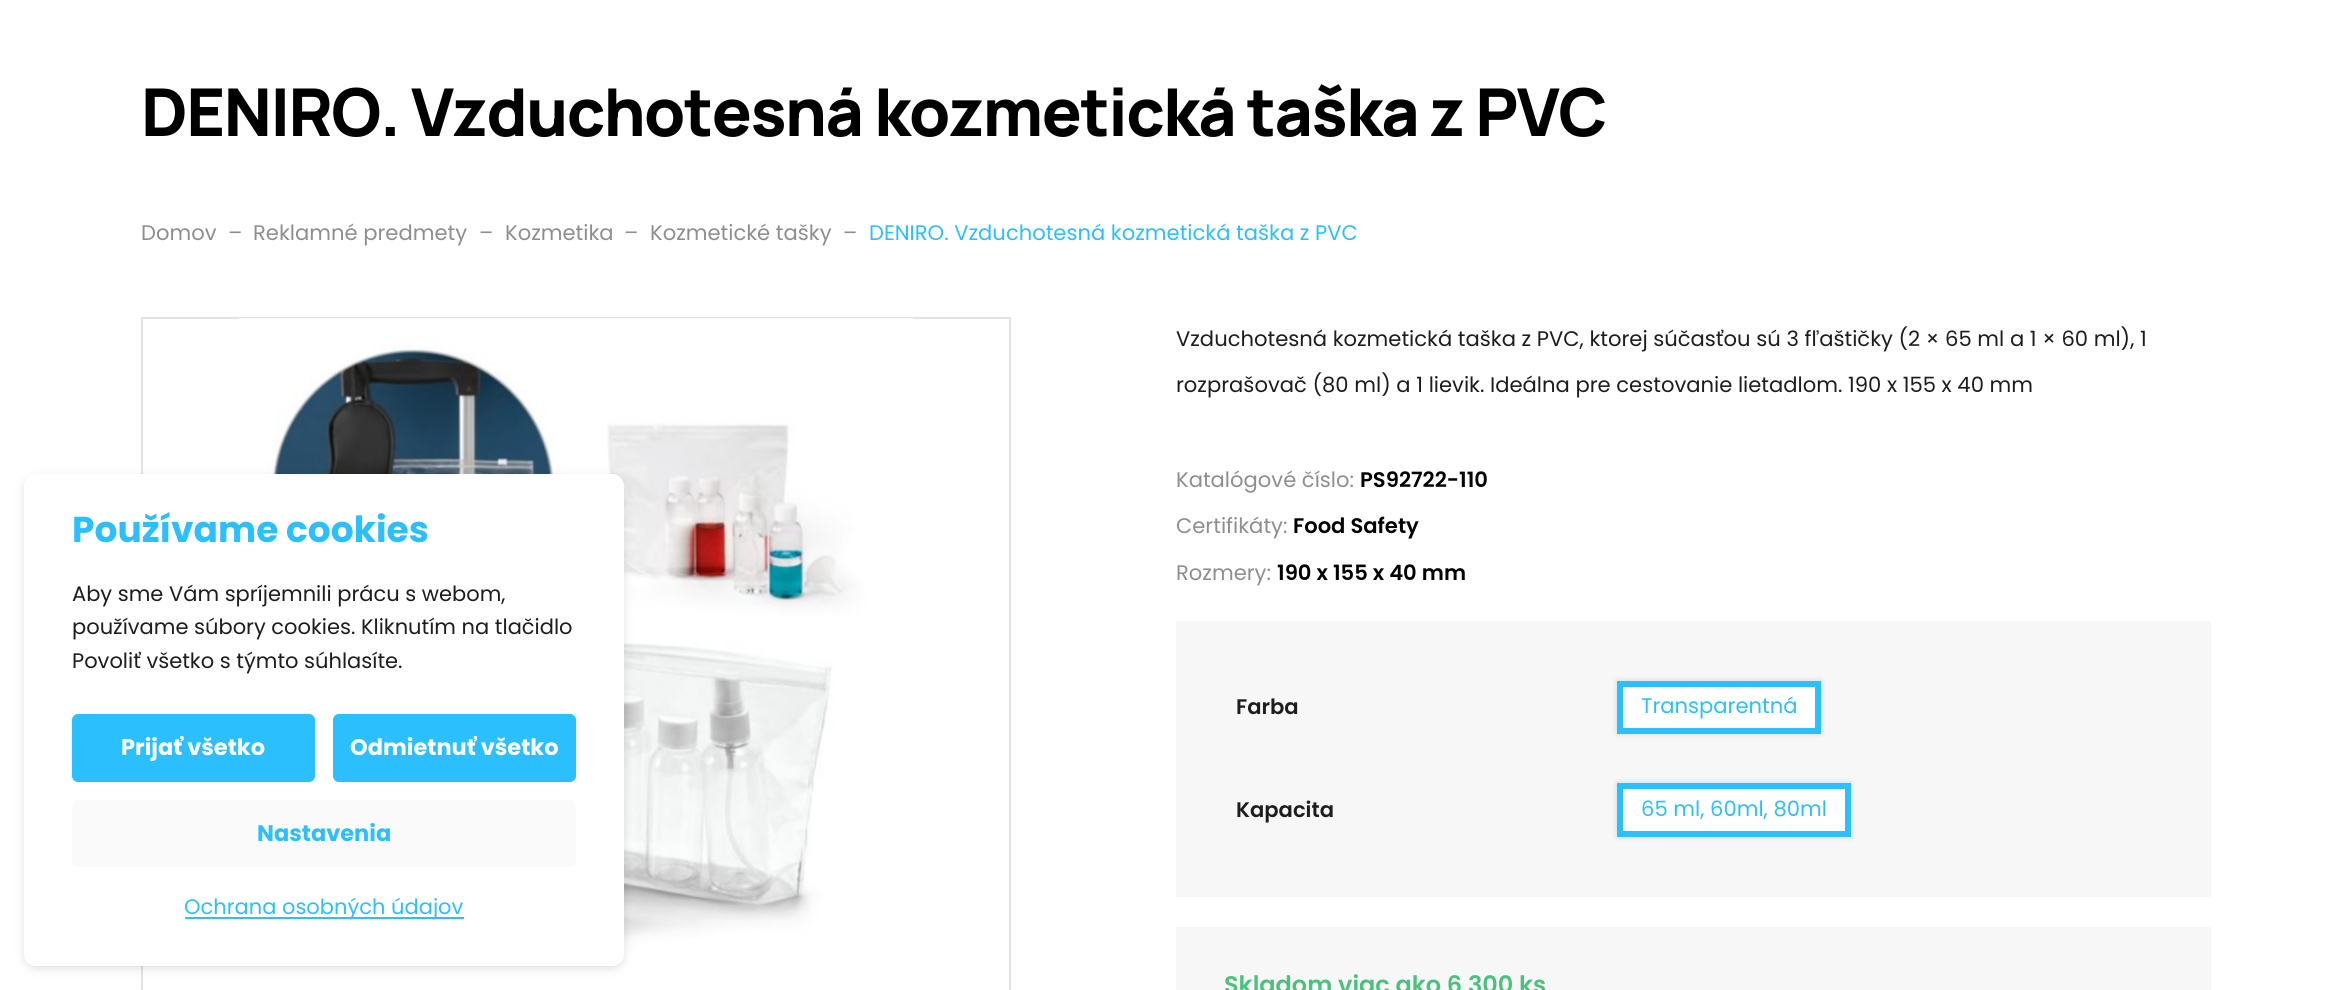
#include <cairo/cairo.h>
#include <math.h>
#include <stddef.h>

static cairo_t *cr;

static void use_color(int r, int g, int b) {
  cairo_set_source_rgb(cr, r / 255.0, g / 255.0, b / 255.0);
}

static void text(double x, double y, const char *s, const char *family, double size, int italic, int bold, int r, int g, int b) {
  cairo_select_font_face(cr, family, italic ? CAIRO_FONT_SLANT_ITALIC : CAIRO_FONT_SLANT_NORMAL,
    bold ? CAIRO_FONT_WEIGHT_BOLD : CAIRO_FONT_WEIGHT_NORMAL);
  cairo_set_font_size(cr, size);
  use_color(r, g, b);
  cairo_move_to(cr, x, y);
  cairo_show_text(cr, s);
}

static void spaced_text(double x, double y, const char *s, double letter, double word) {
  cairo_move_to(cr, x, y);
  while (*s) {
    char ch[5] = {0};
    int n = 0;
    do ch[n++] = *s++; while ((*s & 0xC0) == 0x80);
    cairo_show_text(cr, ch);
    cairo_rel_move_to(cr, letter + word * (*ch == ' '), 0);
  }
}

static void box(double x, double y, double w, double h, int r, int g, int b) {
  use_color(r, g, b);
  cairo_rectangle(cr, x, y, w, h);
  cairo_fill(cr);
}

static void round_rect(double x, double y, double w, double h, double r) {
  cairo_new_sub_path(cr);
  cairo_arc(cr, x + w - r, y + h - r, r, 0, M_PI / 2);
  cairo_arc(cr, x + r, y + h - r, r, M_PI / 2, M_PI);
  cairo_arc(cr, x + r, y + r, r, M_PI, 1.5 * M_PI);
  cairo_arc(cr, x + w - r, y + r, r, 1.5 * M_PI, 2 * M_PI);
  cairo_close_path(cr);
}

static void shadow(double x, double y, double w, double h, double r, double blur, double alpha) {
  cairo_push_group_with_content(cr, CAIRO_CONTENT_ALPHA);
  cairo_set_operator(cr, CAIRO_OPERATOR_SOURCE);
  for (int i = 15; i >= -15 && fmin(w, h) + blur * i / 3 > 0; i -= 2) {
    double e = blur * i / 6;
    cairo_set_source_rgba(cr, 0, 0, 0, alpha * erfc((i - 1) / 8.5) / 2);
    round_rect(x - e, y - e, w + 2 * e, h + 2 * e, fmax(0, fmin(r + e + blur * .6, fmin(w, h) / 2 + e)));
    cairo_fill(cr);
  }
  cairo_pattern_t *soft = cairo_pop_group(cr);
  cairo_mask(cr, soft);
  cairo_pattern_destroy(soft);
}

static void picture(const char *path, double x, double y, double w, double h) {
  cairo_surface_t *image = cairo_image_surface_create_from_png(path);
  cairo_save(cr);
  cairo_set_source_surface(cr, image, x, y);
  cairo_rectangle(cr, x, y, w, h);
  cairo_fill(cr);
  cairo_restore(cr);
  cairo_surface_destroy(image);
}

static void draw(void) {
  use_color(255, 255, 255);
  cairo_paint(cr);
  cairo_rectangle(cr, 142, 318, 868, 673);
  use_color(227, 227, 227);
  cairo_stroke(cr);
  picture("img_01.png", 238, 318, 676, 630);
  box(1176, 621, 1035, 149, 247, 247, 247);
  use_color(0, 0, 0);
  shadow(1617, 681, 204, 53, 0, 3, 0.15);
  box(1617, 681, 204, 53, 43, 191, 254);
  box(1623, 687, 192, 41, 255, 255, 255);
  box(1176, 770, 1035, 127, 247, 247, 247);
  use_color(0, 0, 0);
  shadow(1617, 783, 234, 54, 0, 3, 0.15);
  box(1617, 783, 234, 54, 43, 191, 254);
  box(1623, 789, 222, 42, 255, 255, 255);
  box(1176, 927, 1035, 63, 247, 247, 247);
  use_color(0, 0, 0);
  shadow(27, 480, 594, 486, 9, 6, 0.2);
  use_color(255, 255, 255);
  round_rect(24, 474, 600, 492, 12);
  cairo_fill(cr);
  use_color(43, 191, 254);
  round_rect(72, 714, 243, 68, 6);
  cairo_fill(cr);
  round_rect(333, 714, 243, 68, 6);
  cairo_fill(cr);
  use_color(250, 250, 250);
  round_rect(72, 800, 504, 67, 6);
  cairo_fill(cr);
  box(185, 917, 279, 2, 43, 191, 254);
  cairo_select_font_face(cr, "Manrope ExtraLight", CAIRO_FONT_SLANT_NORMAL, CAIRO_FONT_WEIGHT_NORMAL);
  cairo_set_font_size(cr, 66);
  use_color(0, 0, 0);
  spaced_text(141, 136, "DENIRO. Vzduchotesná kozmetická taška z PVC", -1.5, 0);
  text(141, 240, "Domov", "Poppins", 21.1, 0, 0, 142, 142, 142);
  text(228, 240, "–", "Poppins", 21.1, 0, 0, 142, 142, 142);
  text(253, 240, "Reklamné predmety", "Poppins", 21.1, 0, 0, 142, 142, 142);
  text(479, 240, "–", "Poppins", 21.1, 0, 0, 142, 142, 142);
  text(505, 240, "Kozmetika", "Poppins", 21.1, 0, 0, 142, 142, 142);
  text(624, 240, "–", "Poppins", 21.1, 0, 0, 142, 142, 142);
  text(650, 240, "Kozmetické tašky", "Poppins", 21.1, 0, 0, 142, 142, 142);
  text(843, 240, "–", "Poppins", 21.1, 0, 0, 142, 142, 142);
  text(869, 240, "DENIRO. Vzduchotesná kozmetická taška z PVC", "Poppins", 21.1, 0, 0, 43, 191, 254);
  text(1176, 346, "Vzduchotesná kozmetická taška z PVC, ktorej súčasťou sú 3 fľaštičky (2 × 65 ml a 1 × 60 ml), 1", "Poppins", 21.1, 0, 0, 29, 29, 29);
  text(1176, 392, "rozprašovač (80 ml) a 1 lievik. Ideálna pre cestovanie lietadlom. 190 x 155 x 40 mm", "Poppins", 21.1, 0, 0, 29, 29, 29);
  text(1176, 487, "Katalógové číslo:", "Poppins", 21.1, 0, 0, 142, 142, 142);
  text(1360, 487, "PS92722-110", "Poppins SemiBold", 21.1, 0, 0, 0, 0, 0);
  text(1176, 533, "Certifikáty:", "Poppins", 21.1, 0, 0, 142, 142, 142);
  text(1293, 533, "Food Safety", "Poppins SemiBold", 21.1, 0, 0, 0, 0, 0);
  text(1176, 580, "Rozmery:", "Poppins", 21.1, 0, 0, 142, 142, 142);
  text(1277, 580, "190 x 155 x 40 mm", "Poppins SemiBold", 21.1, 0, 0, 0, 0, 0);
  text(1236, 714, "Farba", "Poppins SemiBold", 21.1, 0, 0, 29, 29, 29);
  text(1641, 713, "Transparentná", "Poppins", 21.1, 0, 0, 43, 191, 254);
  text(1236, 817, "Kapacita", "Poppins SemiBold", 21.1, 0, 0, 29, 29, 29);
  text(1641, 816, "65 ml, 60ml, 80ml", "Poppins", 21.1, 0, 0, 43, 191, 254);
  text(1224, 993, "Skladom viac ako 6 300 ks", "Poppins SemiBold", 24, 0, 0, 76, 192, 127);
  text(72, 542, "Používame cookies", "Poppins", 36, 0, 1, 43, 191, 254);
  text(72, 601, "Aby sme Vám spríjemnili prácu s webom,", "Poppins", 21, 0, 0, 29, 29, 29);
  text(72, 634, "používame súbory cookies. Kliknutím na tlačidlo", "Poppins", 21, 0, 0, 29, 29, 29);
  text(72, 668, "Povoliť všetko s týmto súhlasíte.", "Poppins", 21, 0, 0, 29, 29, 29);
  text(121, 755, "Prijať všetko", "Poppins", 22.5, 0, 1, 255, 255, 255);
  text(350, 755, "Odmietnuť všetko", "Poppins", 22.5, 0, 1, 255, 255, 255);
  text(257, 841, "Nastavenia", "Poppins", 22.5, 0, 1, 43, 191, 254);
  text(184, 914, "Ochrana osobných údajov", "Poppins", 21, 0, 0, 43, 191, 254);
}

int main(void) {
  cairo_surface_t *surface = cairo_image_surface_create(CAIRO_FORMAT_RGB24, 2352, 990);
  cr = cairo_create(surface);
  cairo_font_options_t *options = cairo_font_options_create();
  cairo_font_options_set_hint_metrics(options, CAIRO_HINT_METRICS_OFF);
  cairo_font_options_set_hint_style(options, CAIRO_HINT_STYLE_NONE);
  cairo_set_font_options(cr, options);
  cairo_set_miter_limit(cr, 4);
  draw();
  cairo_surface_write_to_png(surface, "out.png");
  cairo_font_options_destroy(options);
  cairo_destroy(cr);
  cairo_surface_destroy(surface);
  return 0;
}
